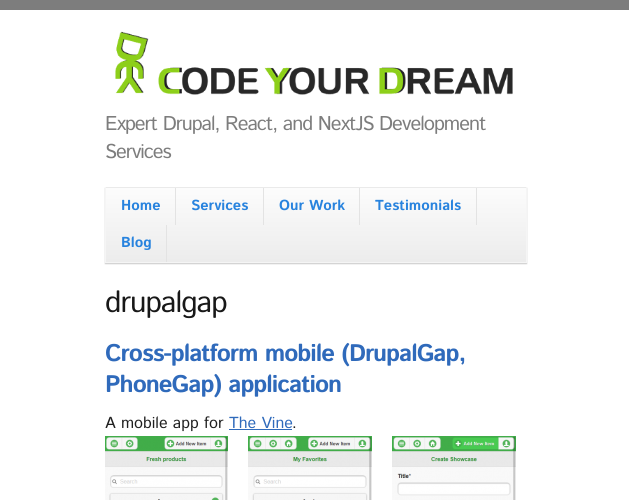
#include <cairo/cairo.h>
#include <math.h>
#include <stddef.h>

static cairo_t *cr;

static void use_color(int r, int g, int b) {
  cairo_set_source_rgb(cr, r / 255.0, g / 255.0, b / 255.0);
}

static void text(double x, double y, const char *s, const char *family, double size, int italic, int bold, int r, int g, int b) {
  cairo_select_font_face(cr, family, italic ? CAIRO_FONT_SLANT_ITALIC : CAIRO_FONT_SLANT_NORMAL,
    bold ? CAIRO_FONT_WEIGHT_BOLD : CAIRO_FONT_WEIGHT_NORMAL);
  cairo_set_font_size(cr, size);
  use_color(r, g, b);
  cairo_move_to(cr, x, y);
  cairo_show_text(cr, s);
}

static void spaced_text(double x, double y, const char *s, double letter, double word) {
  cairo_move_to(cr, x, y);
  while (*s) {
    char ch[5] = {0};
    int n = 0;
    do ch[n++] = *s++; while ((*s & 0xC0) == 0x80);
    cairo_show_text(cr, ch);
    cairo_rel_move_to(cr, letter + word * (*ch == ' '), 0);
  }
}

static void box(double x, double y, double w, double h, int r, int g, int b) {
  use_color(r, g, b);
  cairo_rectangle(cr, x, y, w, h);
  cairo_fill(cr);
}

static void round_rect(double x, double y, double w, double h, double r) {
  cairo_new_sub_path(cr);
  cairo_arc(cr, x + w - r, y + h - r, r, 0, M_PI / 2);
  cairo_arc(cr, x + r, y + h - r, r, M_PI / 2, M_PI);
  cairo_arc(cr, x + r, y + r, r, M_PI, 1.5 * M_PI);
  cairo_arc(cr, x + w - r, y + r, r, 1.5 * M_PI, 2 * M_PI);
  cairo_close_path(cr);
}

static void shadow(double x, double y, double w, double h, double r, double blur, double alpha) {
  cairo_push_group_with_content(cr, CAIRO_CONTENT_ALPHA);
  cairo_set_operator(cr, CAIRO_OPERATOR_SOURCE);
  for (int i = 15; i >= -15 && fmin(w, h) + blur * i / 3 > 0; i -= 2) {
    double e = blur * i / 6;
    cairo_set_source_rgba(cr, 0, 0, 0, alpha * erfc((i - 1) / 8.5) / 2);
    round_rect(x - e, y - e, w + 2 * e, h + 2 * e, fmax(0, fmin(r + e + blur * .6, fmin(w, h) / 2 + e)));
    cairo_fill(cr);
  }
  cairo_pattern_t *soft = cairo_pop_group(cr);
  cairo_mask(cr, soft);
  cairo_pattern_destroy(soft);
}

static void picture(const char *path, double x, double y, double w, double h) {
  cairo_surface_t *image = cairo_image_surface_create_from_png(path);
  cairo_save(cr);
  cairo_set_source_surface(cr, image, x, y);
  cairo_rectangle(cr, x, y, w, h);
  cairo_fill(cr);
  cairo_restore(cr);
  cairo_surface_destroy(image);
}

static void draw(void) {
  cairo_pattern_t *gradient;
  use_color(255, 255, 255);
  cairo_paint(cr);
  box(0, 0, 629, 10, 125, 125, 125);
  picture("img_01.png", 115, 31, 398, 64);
  use_color(0, 0, 0);
  shadow(105, 188, 422, 76, 0, 0.5, 0.2);
  gradient = cairo_pattern_create_linear(316, 188, 316, 262);
  cairo_pattern_add_color_stop_rgba(gradient, 0, 0.988, 0.988, 0.988, 1);
  cairo_pattern_add_color_stop_rgba(gradient, 1, 0.925, 0.925, 0.925, 1);
  cairo_set_source(cr, gradient);
  cairo_pattern_destroy(gradient);
  cairo_rectangle(cr, 106, 188, 420, 74);
  cairo_fill(cr);
  box(105, 187, 422, 1, 234, 234, 234);
  box(526, 187, 1, 76, 245, 245, 245);
  box(105, 262, 422, 1, 245, 245, 245);
  box(105, 187, 1, 76, 245, 245, 245);
  box(175, 188, 1, 37, 227, 227, 227);
  box(263, 188, 1, 37, 227, 227, 227);
  box(359, 188, 1, 37, 227, 227, 227);
  box(476, 188, 1, 37, 227, 227, 227);
  box(166, 225, 1, 37, 227, 227, 227);
  box(229, 429, 63, 1, 47, 106, 187);
  picture("img_02.png", 105, 436, 123, 64);
  picture("img_03.png", 248, 436, 124, 64);
  picture("img_04.png", 392, 436, 124, 64);
  cairo_select_font_face(cr, "Istok Web", CAIRO_FONT_SLANT_NORMAL, CAIRO_FONT_WEIGHT_NORMAL);
  cairo_set_font_size(cr, 20);
  use_color(125, 125, 125);
  spaced_text(105, 130, "Expert Drupal, React, and NextJS Development", -1, 0);
  spaced_text(105, 158, "Services", -1, 0);
  text(121, 210, "Home", "Istok Web", 14.5, 0, 1, 40, 131, 222);
  text(191, 210, "Services", "Istok Web", 14.5, 0, 1, 40, 131, 222);
  text(279, 210, "Our Work", "Istok Web", 14.5, 0, 1, 40, 131, 222);
  text(375, 210, "Testimonials", "Istok Web", 14.5, 0, 1, 40, 131, 222);
  text(121, 247, "Blog", "Istok Web", 14.5, 0, 1, 40, 131, 222);
  cairo_select_font_face(cr, "Istok Web", CAIRO_FONT_SLANT_NORMAL, CAIRO_FONT_WEIGHT_NORMAL);
  cairo_set_font_size(cr, 30);
  use_color(24, 24, 24);
  spaced_text(105, 312, "drupalgap", -1, 0);
  cairo_select_font_face(cr, "Istok Web", CAIRO_FONT_SLANT_NORMAL, CAIRO_FONT_WEIGHT_BOLD);
  cairo_set_font_size(cr, 24);
  use_color(47, 106, 187);
  spaced_text(105, 361, "Cross-platform mobile (DrupalGap,", -1, 0);
  spaced_text(105, 392, "PhoneGap) application", -1, 0);
  text(105, 428, "A mobile app for", "Istok Web", 16, 0, 0, 32, 32, 32);
  text(229, 428, "The Vine", "Istok Web", 16, 0, 0, 47, 106, 187);
  text(292, 428, ".", "Istok Web", 16, 0, 0, 32, 32, 32);
}

int main(void) {
  cairo_surface_t *surface = cairo_image_surface_create(CAIRO_FORMAT_RGB24, 629, 500);
  cr = cairo_create(surface);
  cairo_font_options_t *options = cairo_font_options_create();
  cairo_font_options_set_hint_metrics(options, CAIRO_HINT_METRICS_OFF);
  cairo_font_options_set_hint_style(options, CAIRO_HINT_STYLE_NONE);
  cairo_set_font_options(cr, options);
  cairo_set_miter_limit(cr, 4);
  draw();
  cairo_surface_write_to_png(surface, "out.png");
  cairo_font_options_destroy(options);
  cairo_destroy(cr);
  cairo_surface_destroy(surface);
  return 0;
}
